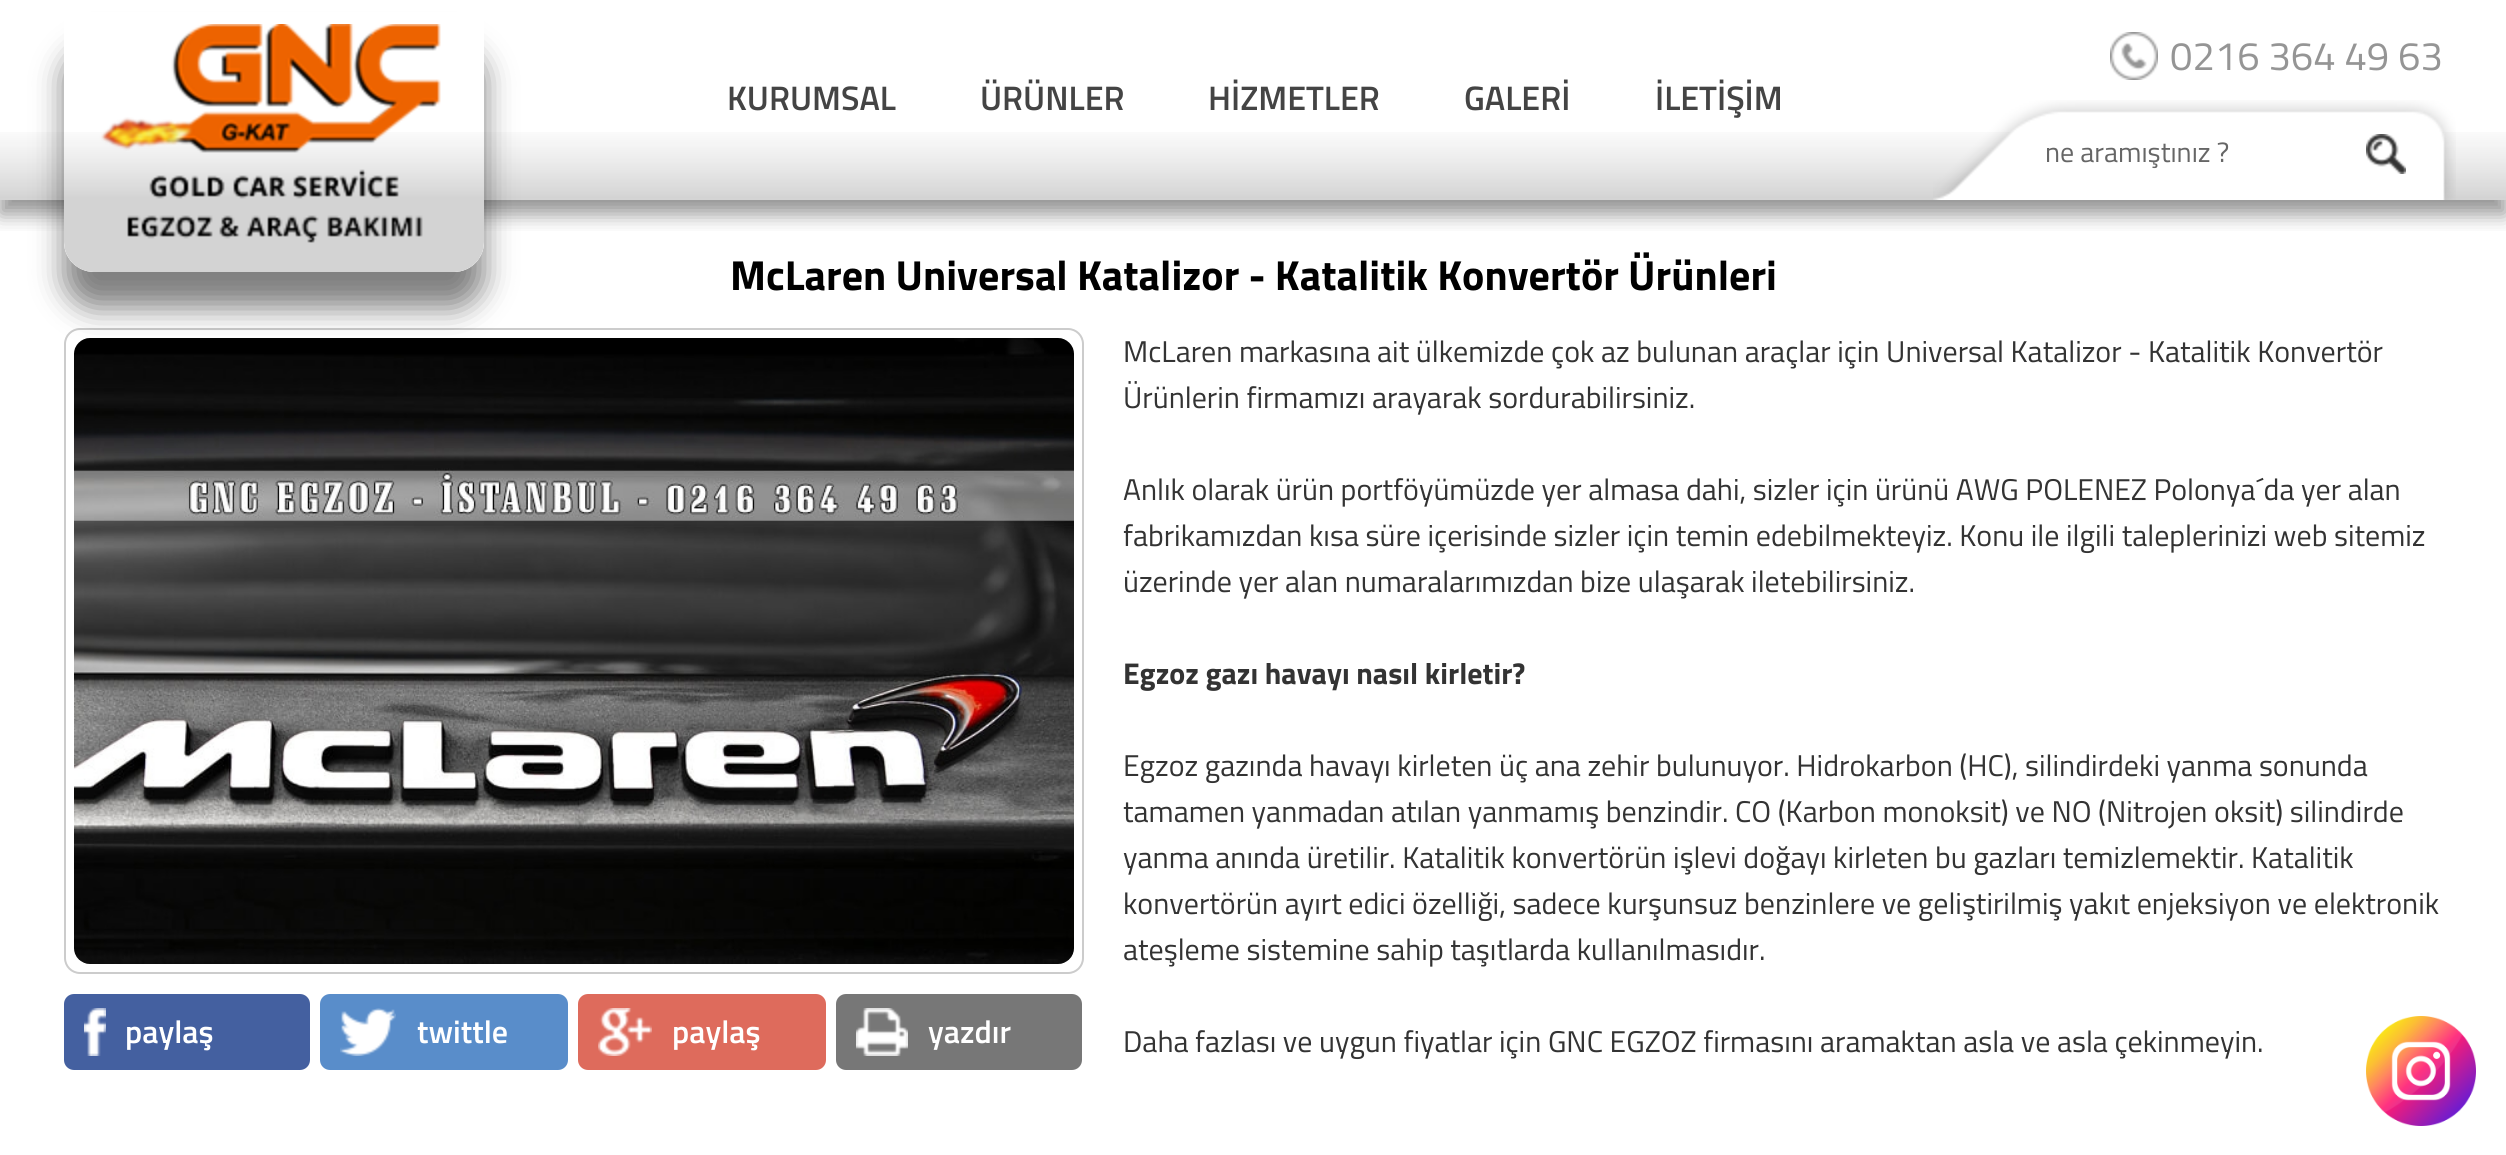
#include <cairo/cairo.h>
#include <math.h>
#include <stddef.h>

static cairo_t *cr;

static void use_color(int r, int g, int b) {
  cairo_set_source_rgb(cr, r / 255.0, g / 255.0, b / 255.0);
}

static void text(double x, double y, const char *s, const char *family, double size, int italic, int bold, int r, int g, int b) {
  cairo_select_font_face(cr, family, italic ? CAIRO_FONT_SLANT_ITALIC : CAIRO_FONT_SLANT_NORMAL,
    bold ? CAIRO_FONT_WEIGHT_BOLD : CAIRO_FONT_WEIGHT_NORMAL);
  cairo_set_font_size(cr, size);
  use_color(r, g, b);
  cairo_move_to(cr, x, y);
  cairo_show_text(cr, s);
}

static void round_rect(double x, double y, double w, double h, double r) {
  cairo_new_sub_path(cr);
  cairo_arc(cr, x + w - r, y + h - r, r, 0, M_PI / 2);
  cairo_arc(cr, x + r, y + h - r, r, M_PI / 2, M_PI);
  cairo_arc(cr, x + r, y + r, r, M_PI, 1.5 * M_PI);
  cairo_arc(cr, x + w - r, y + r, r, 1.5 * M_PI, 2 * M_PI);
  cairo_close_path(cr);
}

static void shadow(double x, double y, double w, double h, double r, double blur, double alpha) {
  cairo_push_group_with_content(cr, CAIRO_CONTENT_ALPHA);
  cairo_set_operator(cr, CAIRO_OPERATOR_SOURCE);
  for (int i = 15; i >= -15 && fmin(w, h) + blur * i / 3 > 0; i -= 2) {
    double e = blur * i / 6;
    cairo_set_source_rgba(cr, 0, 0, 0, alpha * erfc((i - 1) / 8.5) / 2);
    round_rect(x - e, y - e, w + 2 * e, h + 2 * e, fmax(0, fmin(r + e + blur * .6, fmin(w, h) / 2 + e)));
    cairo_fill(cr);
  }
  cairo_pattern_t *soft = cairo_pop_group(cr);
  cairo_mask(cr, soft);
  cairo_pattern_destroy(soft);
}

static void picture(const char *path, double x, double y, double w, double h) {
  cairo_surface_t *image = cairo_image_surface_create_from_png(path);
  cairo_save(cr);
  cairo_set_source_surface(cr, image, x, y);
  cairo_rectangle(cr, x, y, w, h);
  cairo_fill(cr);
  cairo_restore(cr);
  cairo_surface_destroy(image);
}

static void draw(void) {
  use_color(255, 255, 255);
  cairo_paint(cr);
  cairo_save(cr);
  cairo_rectangle(cr, 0, 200, 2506, 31);
  cairo_clip(cr);
  use_color(40, 40, 40);
  shadow(0, 14, 2506, 200, 0, 10, 0.5);
  cairo_restore(cr);
  picture("img_01.png", 0, 132, 2506, 68);
  round_rect(65, 329, 1018, 644, 15);
  use_color(204, 204, 204);
  cairo_stroke(cr);
  picture("img_06.png", 74, 338, 1000, 626);
  cairo_save(cr);
  cairo_set_fill_rule(cr, CAIRO_FILL_RULE_EVEN_ODD);
  cairo_new_path(cr);
  cairo_move_to(cr, 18, 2);
  cairo_line_to(cr, 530, 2);
  cairo_line_to(cr, 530, 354);
  cairo_line_to(cr, 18, 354);
  cairo_close_path(cr);
  cairo_move_to(cr, 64, 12);
  cairo_line_to(cr, 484, 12);
  cairo_line_to(cr, 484, 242);
  cairo_curve_to(cr, 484, 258.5, 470.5, 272, 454, 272);
  cairo_line_to(cr, 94, 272);
  cairo_curve_to(cr, 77.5, 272, 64, 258.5, 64, 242);
  cairo_close_path(cr);
  cairo_clip(cr);
  use_color(0, 0, 0);
  shadow(64, 48, 420, 260, 30, 15, 0.5);
  cairo_restore(cr);
  picture("img_02.png", 64, 24, 420, 248);
  picture("img_03.png", 2110, 32, 48, 48);
  picture("img_04.png", 1933, 100, 523, 100);
  picture("img_05.png", 2366, 134, 40, 40);
  use_color(68, 96, 160);
  round_rect(64, 994, 246, 76, 10);
  cairo_fill(cr);
  picture("img_07.png", 84, 1008, 22, 48);
  use_color(89, 141, 202);
  round_rect(320, 994, 248, 76, 10);
  cairo_fill(cr);
  picture("img_08.png", 340, 1008, 56, 48);
  use_color(222, 107, 92);
  round_rect(578, 994, 248, 76, 10);
  cairo_fill(cr);
  picture("img_09.png", 598, 1008, 54, 48);
  use_color(119, 119, 119);
  round_rect(836, 994, 246, 76, 10);
  cairo_fill(cr);
  picture("img_10.png", 856, 1008, 52, 48);
  picture("img_11.png", 2366, 1016, 110, 110);
  text(2170, 70, "0216 364 49 63", "Titillium Web", 40, 0, 0, 149, 149, 149);
  text(727, 110, "KURUMSAL", "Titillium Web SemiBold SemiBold", 34, 0, 0, 68, 68, 68);
  text(980, 110, "ÜRÜNLER", "Titillium Web SemiBold SemiBold", 34, 0, 0, 68, 68, 68);
  text(1208, 110, "HİZMETLER", "Titillium Web SemiBold SemiBold", 34, 0, 0, 68, 68, 68);
  text(1464, 110, "GALERİ", "Titillium Web SemiBold SemiBold", 34, 0, 0, 68, 68, 68);
  text(1655, 110, "İLETİŞİM", "Titillium Web SemiBold SemiBold", 34, 0, 0, 68, 68, 68);
  text(2045, 162, "ne aramıştınız ?", "Titillium Web", 28, 0, 0, 102, 102, 102);
  text(730, 290, "McLaren Universal Katalizor - Katalitik Konvertör Ürünleri", "Titillium Web", 42, 0, 1, 0, 0, 0);
  text(125, 1043, "paylaş", "Titillium Web SemiBold SemiBold", 32, 0, 0, 255, 255, 255);
  text(417, 1043, "twittle", "Titillium Web SemiBold SemiBold", 32, 0, 0, 255, 255, 255);
  text(672, 1043, "paylaş", "Titillium Web SemiBold SemiBold", 32, 0, 0, 255, 255, 255);
  text(928, 1043, "yazdır", "Titillium Web SemiBold SemiBold", 32, 0, 0, 255, 255, 255);
  text(1123, 362, "McLaren markasına ait ülkemizde çok az bulunan araçlar için Universal Katalizor - Katalitik Konvertör", "Titillium Web", 30, 0, 0, 51, 51, 51);
  text(1123, 408, "Ürünlerin firmamızı arayarak sordurabilirsiniz.", "Titillium Web", 30, 0, 0, 51, 51, 51);
  text(1123, 500, "Anlık olarak ürün portföyümüzde yer almasa dahi, sizler için ürünü AWG POLENEZ Polonya´da yer alan", "Titillium Web", 30, 0, 0, 51, 51, 51);
  text(1123, 546, "fabrikamızdan kısa süre içerisinde sizler için temin edebilmekteyiz. Konu ile ilgili taleplerinizi web sitemiz", "Titillium Web", 30, 0, 0, 51, 51, 51);
  text(1123, 592, "üzerinde yer alan numaralarımızdan bize ulaşarak iletebilirsiniz.", "Titillium Web", 30, 0, 0, 51, 51, 51);
  text(1123, 684, "Egzoz gazı havayı nasıl kirletir?", "Titillium Web", 30, 0, 1, 51, 51, 51);
  text(1123, 776, "Egzoz gazında havayı kirleten üç ana zehir bulunuyor. Hidrokarbon (HC), silindirdeki yanma sonunda", "Titillium Web", 30, 0, 0, 51, 51, 51);
  text(1123, 822, "tamamen yanmadan atılan yanmamış benzindir. CO (Karbon monoksit) ve NO (Nitrojen oksit) silindirde", "Titillium Web", 30, 0, 0, 51, 51, 51);
  text(1123, 868, "yanma anında üretilir. Katalitik konvertörün işlevi doğayı kirleten bu gazları temizlemektir. Katalitik", "Titillium Web", 30, 0, 0, 51, 51, 51);
  text(1123, 914, "konvertörün ayırt edici özelliği, sadece kurşunsuz benzinlere ve geliştirilmiş yakıt enjeksiyon ve elektronik", "Titillium Web", 30, 0, 0, 51, 51, 51);
  text(1123, 960, "ateşleme sistemine sahip taşıtlarda kullanılmasıdır.", "Titillium Web", 30, 0, 0, 51, 51, 51);
  text(1123, 1052, "Daha fazlası ve uygun fiyatlar için GNC EGZOZ firmasını aramaktan asla ve asla çekinmeyin.", "Titillium Web", 30, 0, 0, 51, 51, 51);
}

int main(void) {
  cairo_surface_t *surface = cairo_image_surface_create(CAIRO_FORMAT_RGB24, 2506, 1155);
  cr = cairo_create(surface);
  cairo_font_options_t *options = cairo_font_options_create();
  cairo_font_options_set_hint_metrics(options, CAIRO_HINT_METRICS_OFF);
  cairo_font_options_set_hint_style(options, CAIRO_HINT_STYLE_NONE);
  cairo_set_font_options(cr, options);
  cairo_set_miter_limit(cr, 4);
  draw();
  cairo_surface_write_to_png(surface, "out.png");
  cairo_font_options_destroy(options);
  cairo_destroy(cr);
  cairo_surface_destroy(surface);
  return 0;
}
